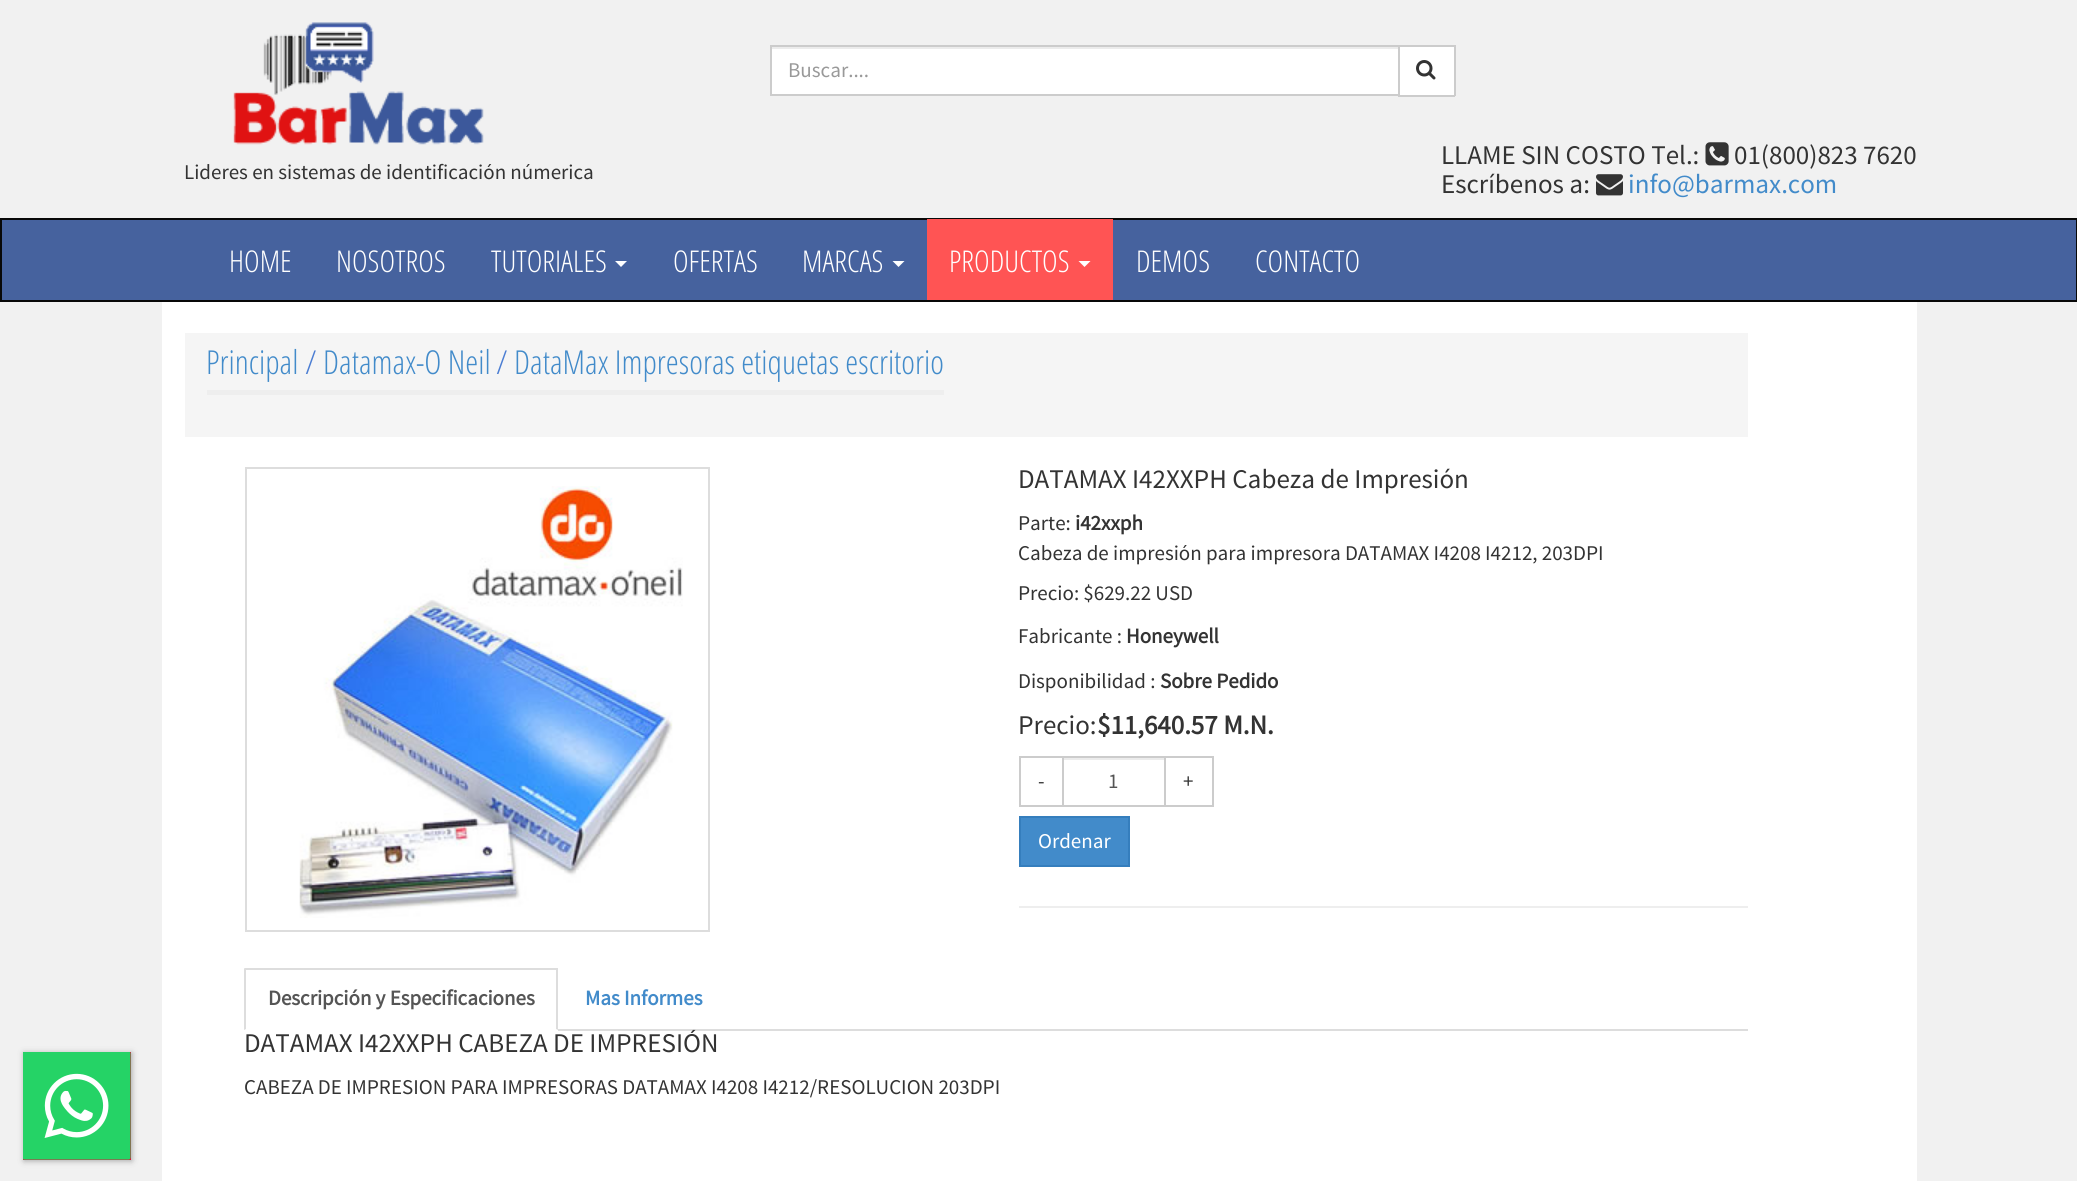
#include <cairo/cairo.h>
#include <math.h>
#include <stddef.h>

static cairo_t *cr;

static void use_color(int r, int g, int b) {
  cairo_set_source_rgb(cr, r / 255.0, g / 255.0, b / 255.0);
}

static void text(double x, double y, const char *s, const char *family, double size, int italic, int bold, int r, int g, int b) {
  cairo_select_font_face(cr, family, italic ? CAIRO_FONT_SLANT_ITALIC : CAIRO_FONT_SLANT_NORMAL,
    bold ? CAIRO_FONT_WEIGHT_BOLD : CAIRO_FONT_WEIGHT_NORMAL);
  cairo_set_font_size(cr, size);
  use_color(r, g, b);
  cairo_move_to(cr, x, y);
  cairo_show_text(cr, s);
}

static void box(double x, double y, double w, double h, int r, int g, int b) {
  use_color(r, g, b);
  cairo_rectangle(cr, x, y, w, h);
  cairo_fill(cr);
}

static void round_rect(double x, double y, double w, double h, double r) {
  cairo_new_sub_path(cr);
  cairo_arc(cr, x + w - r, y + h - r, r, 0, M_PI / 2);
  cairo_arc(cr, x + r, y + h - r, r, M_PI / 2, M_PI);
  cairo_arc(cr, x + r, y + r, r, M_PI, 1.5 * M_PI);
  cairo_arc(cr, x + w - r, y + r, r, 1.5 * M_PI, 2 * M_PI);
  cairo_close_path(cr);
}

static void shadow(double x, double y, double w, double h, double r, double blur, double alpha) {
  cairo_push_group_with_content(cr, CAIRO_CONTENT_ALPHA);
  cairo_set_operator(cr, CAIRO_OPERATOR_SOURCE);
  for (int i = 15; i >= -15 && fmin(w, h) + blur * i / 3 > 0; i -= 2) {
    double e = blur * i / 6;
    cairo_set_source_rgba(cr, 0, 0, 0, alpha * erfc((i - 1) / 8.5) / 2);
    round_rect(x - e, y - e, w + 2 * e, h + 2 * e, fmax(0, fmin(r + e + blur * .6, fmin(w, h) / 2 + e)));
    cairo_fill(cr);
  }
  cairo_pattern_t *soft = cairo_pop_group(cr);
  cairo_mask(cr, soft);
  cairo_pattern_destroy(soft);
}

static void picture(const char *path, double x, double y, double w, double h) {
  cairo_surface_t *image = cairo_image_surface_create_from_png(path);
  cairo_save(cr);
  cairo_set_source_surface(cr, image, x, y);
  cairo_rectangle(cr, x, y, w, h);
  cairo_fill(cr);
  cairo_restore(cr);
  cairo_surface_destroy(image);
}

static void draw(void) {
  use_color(241, 241, 241);
  cairo_paint(cr);
  box(772, 49, 626, 45, 255, 255, 255);
  box(771, 47, 627, 2, 236, 236, 236);
  box(1398, 45, 57, 2, 204, 204, 204);
  box(1454, 45, 2, 51, 204, 204, 204);
  box(1398, 95, 57, 2, 204, 204, 204);
  cairo_rectangle(cr, 771, 46, 628, 49);
  cairo_stroke(cr);
  box(1400, 47, 54, 48, 255, 255, 255);
  picture("img_01.png", 1416, 60, 20, 20);
  picture("img_02.png", 233, 22, 251, 123);
  picture("img_03.png", 1705, 142, 24, 24);
  picture("img_04.png", 1596, 174, 27, 22);
  use_color(70, 98, 158);
  cairo_rectangle(cr, 1, 219, 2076, 82);
  cairo_fill_preserve(cr);
  use_color(8, 8, 8);
  cairo_stroke(cr);
  use_color(255, 255, 255);
  cairo_new_path(cr);
  cairo_move_to(cr, 615, 261);
  cairo_line_to(cr, 627, 261);
  cairo_line_to(cr, 621, 267);
  cairo_close_path(cr);
  cairo_fill(cr);
  cairo_new_path(cr);
  cairo_move_to(cr, 892.5, 261);
  cairo_line_to(cr, 904.5, 261);
  cairo_line_to(cr, 898.5, 267);
  cairo_close_path(cr);
  cairo_fill(cr);
  box(927, 219, 186, 81, 255, 84, 84);
  use_color(255, 255, 255);
  cairo_new_path(cr);
  cairo_move_to(cr, 1078.5, 261);
  cairo_line_to(cr, 1090.5, 261);
  cairo_line_to(cr, 1084.5, 267);
  cairo_close_path(cr);
  cairo_fill(cr);
  use_color(60, 60, 60);
  shadow(24, 1053, 108, 108, 0, 3, 0.4);
  box(23, 1052, 108, 108, 220, 20, 60);
  picture("img_05.png", 23, 1052, 108, 108);
  box(162, 302, 1755, 879, 255, 255, 255);
  box(185, 333, 1563, 104, 245, 245, 245);
  box(207, 390, 737, 5, 238, 238, 238);
  cairo_rectangle(cr, 246, 468, 463, 463);
  use_color(221, 221, 221);
  cairo_stroke(cr);
  picture("img_06.png", 299, 486, 384, 432);
  cairo_rectangle(cr, 1020, 757, 43, 49);
  use_color(204, 204, 204);
  cairo_stroke(cr);
  box(1064, 758, 100, 2, 236, 236, 236);
  cairo_rectangle(cr, 1165, 757, 48, 49);
  use_color(204, 204, 204);
  cairo_stroke(cr);
  cairo_rectangle(cr, 1063, 757, 102, 49);
  cairo_stroke(cr);
  use_color(66, 139, 202);
  cairo_rectangle(cr, 1020, 817, 109, 49);
  cairo_fill_preserve(cr);
  use_color(53, 126, 189);
  cairo_stroke(cr);
  box(1019, 906, 729, 2, 238, 238, 238);
  box(558, 1029, 1190, 2, 221, 221, 221);
  box(245, 968, 313, 2, 221, 221, 221);
  cairo_new_path(cr);
  cairo_move_to(cr, 244, 1030);
  cairo_line_to(cr, 244, 968);
  cairo_line_to(cr, 246, 969);
  cairo_line_to(cr, 246, 1029);
  cairo_close_path(cr);
  cairo_fill(cr);
  text(788, 77, "Buscar....", "Source Sans Pro", 21, 0, 0, 153, 153, 153);
  text(184, 179, "Lideres en sistemas de identificación númerica", "Source Sans Pro", 21, 0, 0, 51, 51, 51);
  text(1441, 164, "LLAME SIN COSTO Tel.:", "Source Sans Pro", 27, 0, 0, 51, 51, 51);
  text(1734, 164, "01(800)823 7620", "Source Sans Pro", 27, 0, 0, 51, 51, 51);
  text(1441, 193, "Escríbenos a:", "Source Sans Pro", 27, 0, 0, 51, 51, 51);
  text(1628, 193, "info@barmax.com", "Source Sans Pro", 27, 0, 0, 66, 139, 202);
  text(229, 272, "HOME", "Open Sans Light", 30, 0, 0, 255, 255, 255);
  text(336, 272, "NOSOTROS", "Open Sans Light", 30, 0, 0, 255, 255, 255);
  text(491, 272, "TUTORIALES", "Open Sans Light", 30, 0, 0, 255, 255, 255);
  text(673, 272, "OFERTAS", "Open Sans Light", 30, 0, 0, 255, 255, 255);
  text(802, 272, "MARCAS", "Open Sans Light", 30, 0, 0, 255, 255, 255);
  text(949, 272, "PRODUCTOS", "Open Sans Light", 30, 0, 0, 255, 255, 255);
  text(1136, 272, "DEMOS", "Open Sans Light", 30, 0, 0, 255, 255, 255);
  text(1255, 272, "CONTACTO", "Open Sans Light", 30, 0, 0, 255, 255, 255);
  text(206, 374, "Principal", "Open Sans Light", 33, 0, 0, 66, 139, 202);
  text(305, 374, "/", "Open Sans Light", 33, 0, 0, 76, 126, 211);
  text(323, 374, "Datamax-O Neil", "Open Sans Light", 33, 0, 0, 66, 139, 202);
  text(496, 374, "/", "Open Sans Light", 33, 0, 0, 76, 126, 211);
  text(514, 374, "DataMax Impresoras etiquetas escritorio", "Open Sans Light", 33, 0, 0, 66, 139, 202);
  text(1018, 488, "DATAMAX I42XXPH Cabeza de Impresión", "Source Sans Pro", 27, 0, 0, 51, 51, 51);
  text(1018, 530, "Parte:", "Source Sans Pro", 21, 0, 0, 51, 51, 51);
  text(1075, 530, "i42xxph", "Source Sans Pro", 21, 0, 1, 51, 51, 51);
  text(1018, 560, "Cabeza de impresión para impresora DATAMAX I4208 I4212, 203DPI", "Source Sans Pro", 21, 0, 0, 51, 51, 51);
  text(1018, 600, "Precio: $629.22 USD", "Source Sans Pro", 21, 0, 0, 51, 51, 51);
  text(1018, 643, "Fabricante :", "Source Sans Pro", 21, 0, 0, 51, 51, 51);
  text(1126, 643, "Honeywell", "Source Sans Pro", 21, 0, 1, 51, 51, 51);
  text(1018, 688, "Disponibilidad :", "Source Sans Pro", 21, 0, 0, 51, 51, 51);
  text(1160, 688, "Sobre Pedido", "Source Sans Pro", 21, 0, 1, 51, 51, 51);
  text(1018, 734, "Precio:", "Source Sans Pro", 27, 0, 0, 51, 51, 51);
  text(1097, 734, "$11,640.57 M.N.", "Source Sans Pro", 27, 0, 1, 51, 51, 51);
  text(1038, 788, "-", "Source Sans Pro", 21, 0, 0, 51, 51, 51);
  text(1108, 788, "1", "Source Sans Pro", 21, 0, 0, 85, 85, 85);
  text(1183, 788, "+", "Source Sans Pro", 21, 0, 0, 51, 51, 51);
  text(1038, 848, "Ordenar", "Source Sans Pro", 21, 0, 0, 255, 255, 255);
  text(268, 1005, "Descripción y Especificaciones", "Source Sans Pro", 21, 0, 1, 85, 85, 85);
  text(585, 1005, "Mas Informes", "Source Sans Pro", 21, 0, 1, 66, 139, 202);
  text(244, 1052, "DATAMAX I42XXPH CABEZA DE IMPRESIÓN", "Source Sans Pro", 27, 0, 0, 51, 51, 51);
  use_color(221, 221, 221);
  cairo_new_path(cr);
  cairo_move_to(cr, 558, 968);
  cairo_line_to(cr, 558, 1030);
  cairo_line_to(cr, 556, 1029);
  cairo_line_to(cr, 556, 969);
  cairo_close_path(cr);
  cairo_fill(cr);
  text(244, 1094, "CABEZA DE IMPRESION PARA IMPRESORAS DATAMAX I4208 I4212/RESOLUCION 203DPI", "Source Sans Pro", 21, 0, 0, 51, 51, 51);
}

int main(void) {
  cairo_surface_t *surface = cairo_image_surface_create(CAIRO_FORMAT_RGB24, 2077, 1181);
  cr = cairo_create(surface);
  cairo_font_options_t *options = cairo_font_options_create();
  cairo_font_options_set_hint_metrics(options, CAIRO_HINT_METRICS_OFF);
  cairo_font_options_set_hint_style(options, CAIRO_HINT_STYLE_NONE);
  cairo_set_font_options(cr, options);
  cairo_set_miter_limit(cr, 4);
  draw();
  cairo_surface_write_to_png(surface, "out.png");
  cairo_font_options_destroy(options);
  cairo_destroy(cr);
  cairo_surface_destroy(surface);
  return 0;
}
